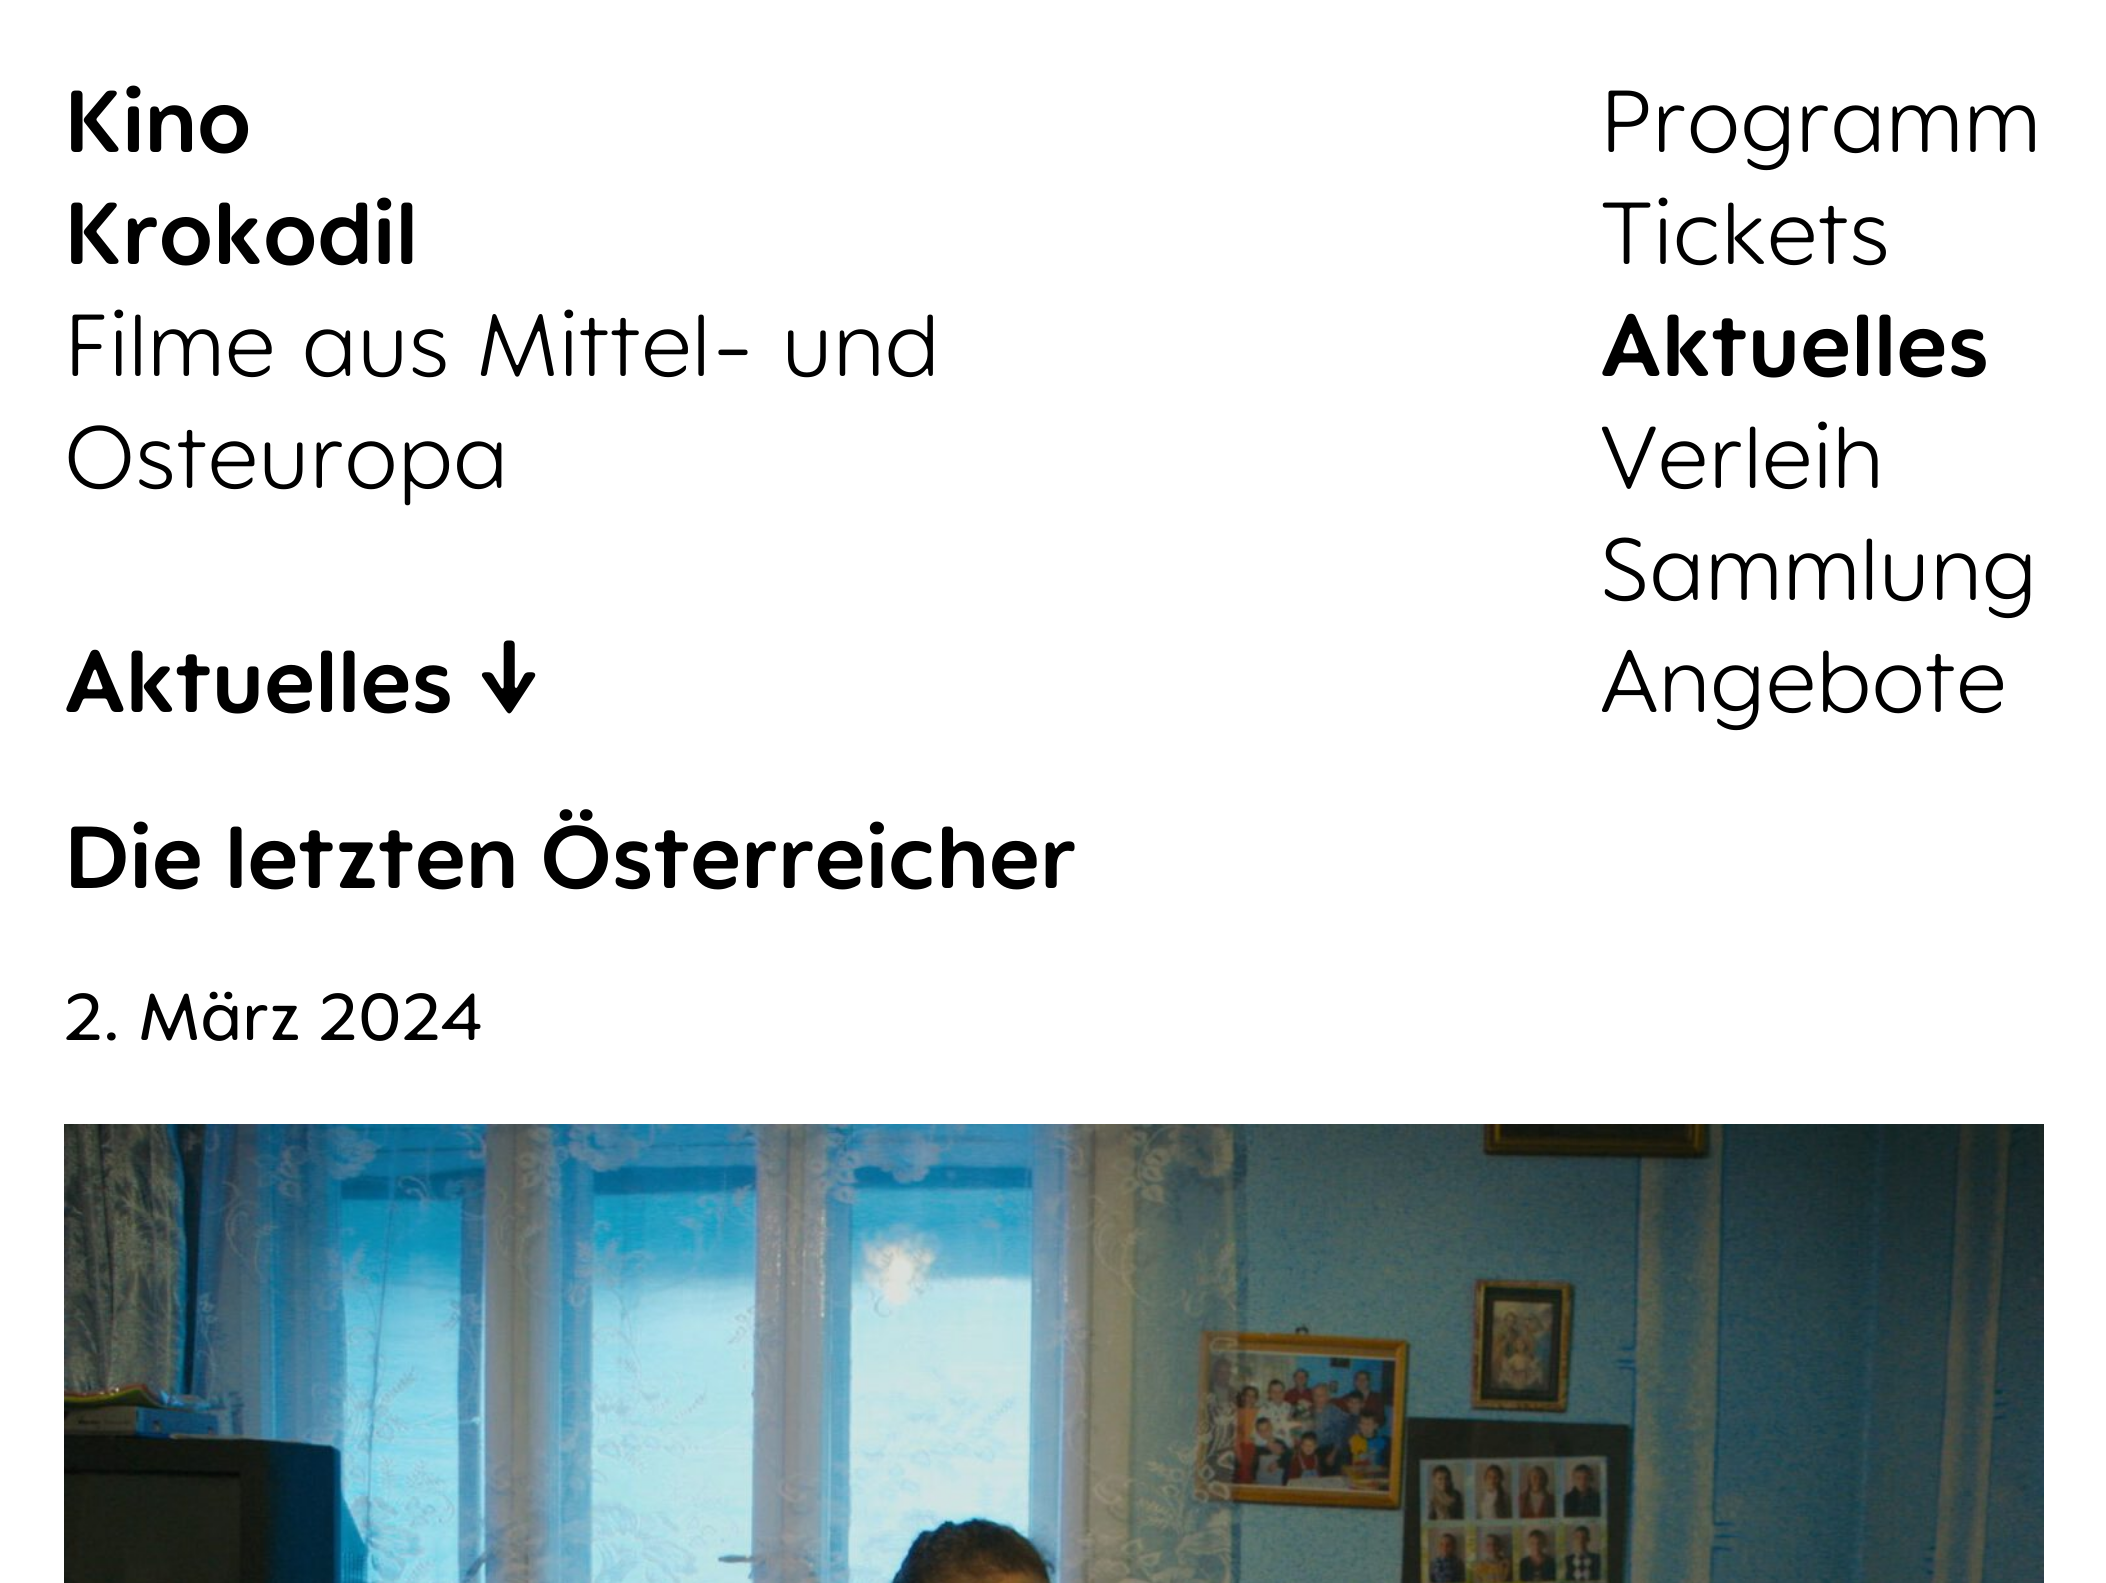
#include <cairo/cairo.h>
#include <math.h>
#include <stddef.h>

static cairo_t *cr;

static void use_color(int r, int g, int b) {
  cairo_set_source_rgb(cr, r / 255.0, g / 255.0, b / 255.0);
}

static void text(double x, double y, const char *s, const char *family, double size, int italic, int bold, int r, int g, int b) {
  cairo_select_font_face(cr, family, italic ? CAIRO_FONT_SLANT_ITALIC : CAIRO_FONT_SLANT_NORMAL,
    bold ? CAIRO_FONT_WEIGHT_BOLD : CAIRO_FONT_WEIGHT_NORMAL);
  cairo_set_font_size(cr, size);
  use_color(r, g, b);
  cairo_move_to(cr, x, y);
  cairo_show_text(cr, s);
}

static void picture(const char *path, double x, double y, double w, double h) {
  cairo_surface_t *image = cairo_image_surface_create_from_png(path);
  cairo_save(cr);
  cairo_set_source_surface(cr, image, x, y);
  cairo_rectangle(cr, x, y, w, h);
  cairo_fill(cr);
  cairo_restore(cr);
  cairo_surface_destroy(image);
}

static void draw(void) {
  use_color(255, 255, 255);
  cairo_paint(cr);
  picture("img_01.png", 64, 1124, 1980, 459);
  text(64, 152, "Kino", "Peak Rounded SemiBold", 96, 0, 0, 0, 0, 0);
  text(64, 264, "Krokodil", "Peak Rounded SemiBold", 96, 0, 0, 0, 0, 0);
  text(64, 376, "Filme aus Mittel- und", "Peak Rounded ExtraLight", 96, 0, 0, 0, 0, 0);
  text(64, 488, "Osteuropa", "Peak Rounded ExtraLight", 96, 0, 0, 0, 0, 0);
  text(64, 712, "Aktuelles", "Peak Rounded SemiBold", 96, 0, 0, 0, 0, 0);
  text(477, 712, "↓", "Peak Rounded SemiBold", 96, 0, 0, 0, 0, 0);
  text(1600, 152, "Programm", "Peak Rounded ExtraLight", 96, 0, 0, 0, 0, 0);
  text(1600, 264, "Tickets", "Peak Rounded ExtraLight", 96, 0, 0, 0, 0, 0);
  text(1600, 376, "Aktuelles", "Peak Rounded SemiBold", 96, 0, 0, 0, 0, 0);
  text(1600, 488, "Verleih", "Peak Rounded ExtraLight", 96, 0, 0, 0, 0, 0);
  text(1600, 600, "Sammlung", "Peak Rounded ExtraLight", 96, 0, 0, 0, 0, 0);
  text(1600, 712, "Angebote", "Peak Rounded ExtraLight", 96, 0, 0, 0, 0, 0);
  text(64, 888, "Die letzten Österreicher", "Peak Rounded SemiBold", 96, 0, 0, 0, 0, 0);
  text(64, 1040, "2. März 2024", "Peak Rounded", 72, 0, 0, 0, 0, 0);
}

int main(void) {
  cairo_surface_t *surface = cairo_image_surface_create(CAIRO_FORMAT_RGB24, 2106, 1583);
  cr = cairo_create(surface);
  cairo_font_options_t *options = cairo_font_options_create();
  cairo_font_options_set_hint_metrics(options, CAIRO_HINT_METRICS_OFF);
  cairo_font_options_set_hint_style(options, CAIRO_HINT_STYLE_NONE);
  cairo_set_font_options(cr, options);
  cairo_set_miter_limit(cr, 4);
  draw();
  cairo_surface_write_to_png(surface, "out.png");
  cairo_font_options_destroy(options);
  cairo_destroy(cr);
  cairo_surface_destroy(surface);
  return 0;
}
